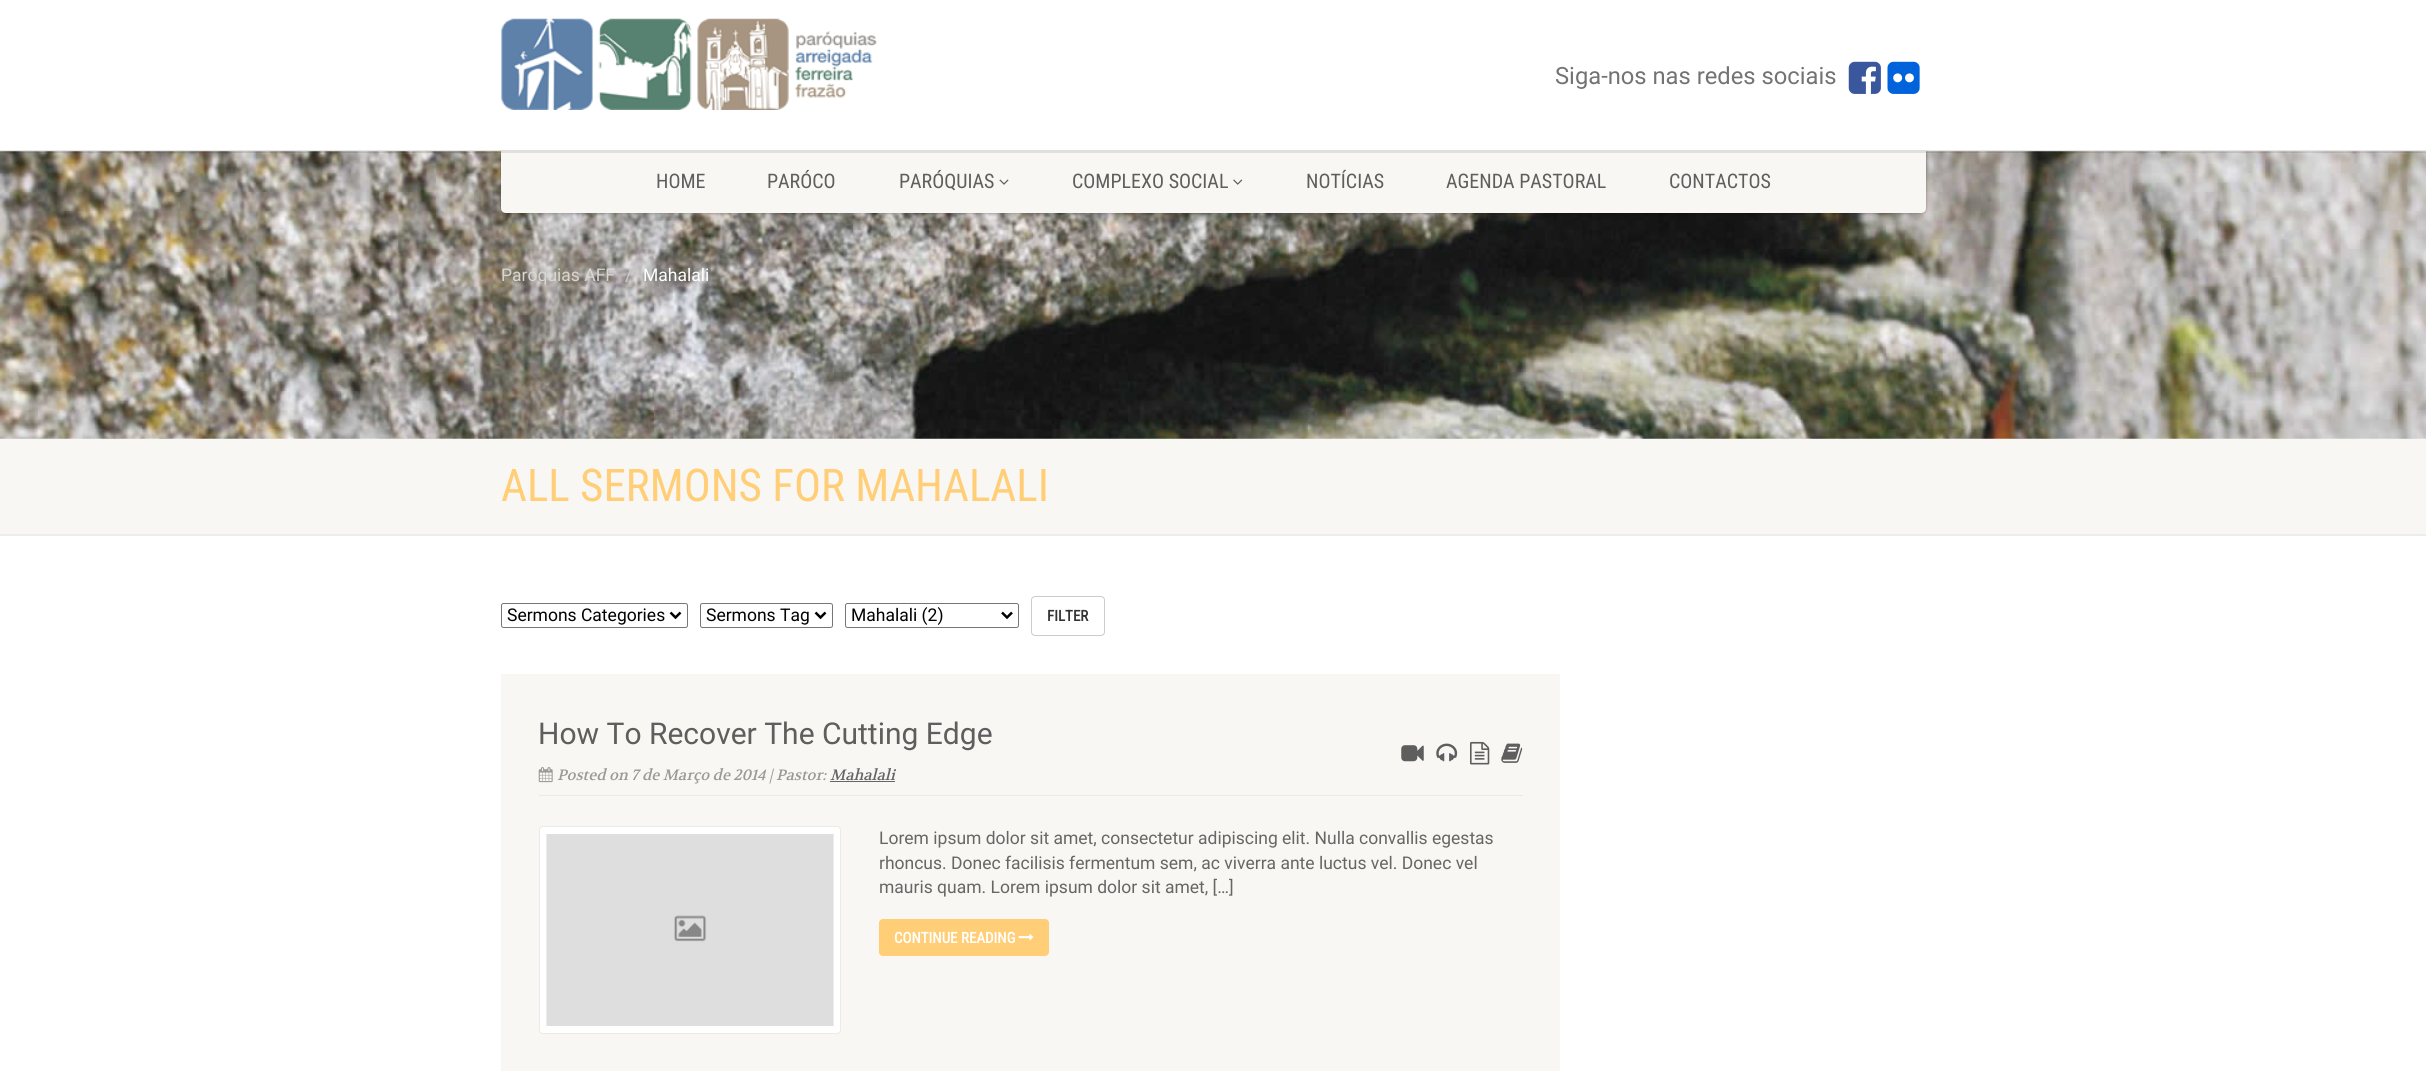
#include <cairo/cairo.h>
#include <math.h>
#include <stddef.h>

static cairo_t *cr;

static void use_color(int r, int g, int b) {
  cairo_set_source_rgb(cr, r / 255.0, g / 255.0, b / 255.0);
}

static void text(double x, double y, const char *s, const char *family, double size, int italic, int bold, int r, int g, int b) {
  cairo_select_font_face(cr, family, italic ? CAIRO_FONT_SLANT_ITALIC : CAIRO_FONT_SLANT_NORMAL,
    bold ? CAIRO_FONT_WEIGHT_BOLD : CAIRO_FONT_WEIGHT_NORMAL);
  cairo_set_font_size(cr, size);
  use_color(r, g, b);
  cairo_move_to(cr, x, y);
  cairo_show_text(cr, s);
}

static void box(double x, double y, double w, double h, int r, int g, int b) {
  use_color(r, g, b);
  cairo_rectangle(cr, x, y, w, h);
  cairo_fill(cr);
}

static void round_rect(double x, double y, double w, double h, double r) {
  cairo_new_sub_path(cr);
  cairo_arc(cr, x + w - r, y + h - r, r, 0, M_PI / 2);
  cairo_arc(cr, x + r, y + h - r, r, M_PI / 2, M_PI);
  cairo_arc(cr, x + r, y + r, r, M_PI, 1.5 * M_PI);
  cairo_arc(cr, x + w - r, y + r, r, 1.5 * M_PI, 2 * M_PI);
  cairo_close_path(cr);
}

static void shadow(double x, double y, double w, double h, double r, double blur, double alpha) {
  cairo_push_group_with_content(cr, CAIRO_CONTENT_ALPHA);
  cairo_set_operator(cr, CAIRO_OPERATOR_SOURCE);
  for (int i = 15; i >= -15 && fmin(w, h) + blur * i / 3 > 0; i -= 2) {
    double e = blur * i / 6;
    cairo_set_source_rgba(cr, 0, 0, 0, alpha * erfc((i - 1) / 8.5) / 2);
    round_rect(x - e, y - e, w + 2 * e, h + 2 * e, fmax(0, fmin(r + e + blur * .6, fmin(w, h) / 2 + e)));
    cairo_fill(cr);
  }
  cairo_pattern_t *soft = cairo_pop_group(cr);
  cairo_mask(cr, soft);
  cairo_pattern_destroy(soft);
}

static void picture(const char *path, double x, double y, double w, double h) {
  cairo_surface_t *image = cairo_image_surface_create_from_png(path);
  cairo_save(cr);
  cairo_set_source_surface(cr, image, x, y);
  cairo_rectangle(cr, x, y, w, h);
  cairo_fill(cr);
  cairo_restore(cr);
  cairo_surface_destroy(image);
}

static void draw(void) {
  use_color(255, 255, 255);
  cairo_paint(cr);
  picture("img_06.png", 0, 151, 2426, 288);
  use_color(0, 0, 0);
  shadow(501, 150, 1425, 63, 5, 2, 0.4);
  use_color(248, 247, 243);
  cairo_new_path(cr);
  cairo_move_to(cr, 501, 150);
  cairo_line_to(cr, 1926, 150);
  cairo_line_to(cr, 1926, 208);
  cairo_curve_to(cr, 1926, 211, 1924, 213, 1921, 213);
  cairo_line_to(cr, 506, 213);
  cairo_curve_to(cr, 503, 213, 501, 211, 501, 208);
  cairo_close_path(cr);
  cairo_fill(cr);
  cairo_set_source_rgba(cr, 0, 0, 0, 0.1);
  cairo_rectangle(cr, 0, 150, 2426, 3);
  cairo_fill(cr);
  box(499, 146, 1429, 4, 255, 255, 255);
  picture("img_01.png", 501, 18, 376, 92);
  picture("img_02.png", 1848, 61, 33, 33);
  picture("img_03.png", 1887, 61, 33, 33);
  picture("img_04.png", 999, 179, 10, 6);
  picture("img_05.png", 1233, 179, 10, 6);
  box(0, 534, 2426, 2, 237, 237, 237);
  box(0, 439, 2426, 95, 248, 247, 243);
  round_rect(501.5, 603.5, 186, 24, 2);
  use_color(118, 118, 118);
  cairo_set_line_width(cr, 1);
  cairo_stroke(cr);
  cairo_new_path(cr);
  cairo_move_to(cr, 670.5, 612.5);
  cairo_line_to(cr, 675.5, 617.5);
  cairo_line_to(cr, 680.5, 612.5);
  use_color(0, 0, 0);
  cairo_set_line_width(cr, 2.5);
  cairo_stroke(cr);
  round_rect(700.5, 603.5, 132, 24, 2);
  use_color(118, 118, 118);
  cairo_set_line_width(cr, 1);
  cairo_stroke(cr);
  cairo_new_path(cr);
  cairo_move_to(cr, 815.5, 612.5);
  cairo_line_to(cr, 820.5, 617.5);
  cairo_line_to(cr, 825.5, 612.5);
  use_color(0, 0, 0);
  cairo_set_line_width(cr, 2.5);
  cairo_stroke(cr);
  round_rect(845.5, 603.5, 173, 24, 2);
  use_color(118, 118, 118);
  cairo_set_line_width(cr, 1);
  cairo_stroke(cr);
  cairo_new_path(cr);
  cairo_move_to(cr, 1002, 612.5);
  cairo_line_to(cr, 1007, 617.5);
  cairo_line_to(cr, 1012, 612.5);
  use_color(0, 0, 0);
  cairo_set_line_width(cr, 2.5);
  cairo_stroke(cr);
  round_rect(1031.5, 596.5, 73, 39, 3.5);
  use_color(204, 204, 204);
  cairo_set_line_width(cr, 1);
  cairo_stroke(cr);
  box(501, 674, 1059, 397, 248, 247, 243);
  box(539, 795, 984, 1, 236, 234, 228);
  picture("img_07.png", 538, 767, 15, 16);
  box(830, 781, 65, 1, 102, 102, 102);
  picture("img_08.png", 1401, 745, 23, 17);
  picture("img_09.png", 1436, 743, 22, 19);
  picture("img_10.png", 1470, 741, 20, 24);
  picture("img_11.png", 1501, 743, 22, 20);
  use_color(255, 255, 255);
  round_rect(539.5, 826.5, 301, 207, 3.5);
  cairo_fill_preserve(cr);
  use_color(236, 234, 228);
  cairo_stroke(cr);
  picture("img_12.png", 546, 834, 288, 192);
  use_color(255, 206, 119);
  round_rect(879, 919, 170, 37, 4);
  cairo_fill(cr);
  picture("img_13.png", 1018, 934, 16, 7);
  text(1555, 84, "Siga-nos nas redes sociais", "Roboto", 23.75, 0, 0, 115, 115, 115);
  text(656, 188, "HOME", "Roboto Condensed", 20, 0, 0, 94, 94, 94);
  text(767, 188, "PARÓCO", "Roboto Condensed", 20, 0, 0, 94, 94, 94);
  text(899, 188, "PARÓQUIAS", "Roboto Condensed", 20, 0, 0, 94, 94, 94);
  text(1072, 188, "COMPLEXO SOCIAL", "Roboto Condensed", 20, 0, 0, 94, 94, 94);
  text(1306, 188, "NOTÍCIAS", "Roboto Condensed", 20, 0, 0, 94, 94, 94);
  text(1446, 188, "AGENDA PASTORAL", "Roboto Condensed", 20, 0, 0, 94, 94, 94);
  text(1669, 188, "CONTACTOS", "Roboto Condensed", 20, 0, 0, 94, 94, 94);
  text(501, 281, "Paróquias AFF", "Roboto", 17.5, 0, 0, 216, 214, 209);
  text(625, 281, "/", "Roboto", 17.5, 0, 0, 204, 204, 204);
  text(643, 281, "Mahalali", "Roboto", 17.5, 0, 0, 255, 255, 255);
  text(501, 501, "ALL SERMONS FOR MAHALALI", "Roboto Condensed", 45, 0, 0, 255, 206, 119);
  text(507, 621, "Sermons Categories", "Roboto", 17.5, 0, 0, 0, 0, 0);
  text(706, 621, "Sermons Tag", "Roboto", 17.5, 0, 0, 0, 0, 0);
  text(851, 621, "Mahalali (2)", "Roboto", 17.5, 0, 0, 0, 0, 0);
  text(1047, 621, "FILTER", "Roboto Condensed", 15, 0, 1, 51, 51, 51);
  text(538, 744, "How To Recover The Cutting Edge", "Roboto", 30, 0, 0, 94, 94, 94);
  text(557, 780, "Posted on 7 de Março de 2014 | Pastor:", "Volkhov", 15, 1, 0, 153, 153, 153);
  text(830, 780, "Mahalali", "Volkhov", 15, 1, 0, 102, 102, 102);
  text(879, 844, "Lorem ipsum dolor sit amet, consectetur adipiscing elit. Nulla convallis egestas", "Roboto", 17.5, 0, 0, 102, 102, 102);
  text(879, 869, "rhoncus. Donec facilisis fermentum sem, ac viverra ante luctus vel. Donec vel", "Roboto", 17.5, 0, 0, 102, 102, 102);
  text(879, 893, "mauris quam. Lorem ipsum dolor sit amet, […]", "Roboto", 17.5, 0, 0, 102, 102, 102);
  text(894, 943, "CONTINUE READING", "Roboto Condensed", 15, 0, 1, 255, 255, 255);
}

int main(void) {
  cairo_surface_t *surface = cairo_image_surface_create(CAIRO_FORMAT_RGB24, 2426, 1081);
  cr = cairo_create(surface);
  cairo_font_options_t *options = cairo_font_options_create();
  cairo_font_options_set_hint_metrics(options, CAIRO_HINT_METRICS_OFF);
  cairo_font_options_set_hint_style(options, CAIRO_HINT_STYLE_NONE);
  cairo_set_font_options(cr, options);
  cairo_set_miter_limit(cr, 4);
  draw();
  cairo_surface_write_to_png(surface, "out.png");
  cairo_font_options_destroy(options);
  cairo_destroy(cr);
  cairo_surface_destroy(surface);
  return 0;
}
